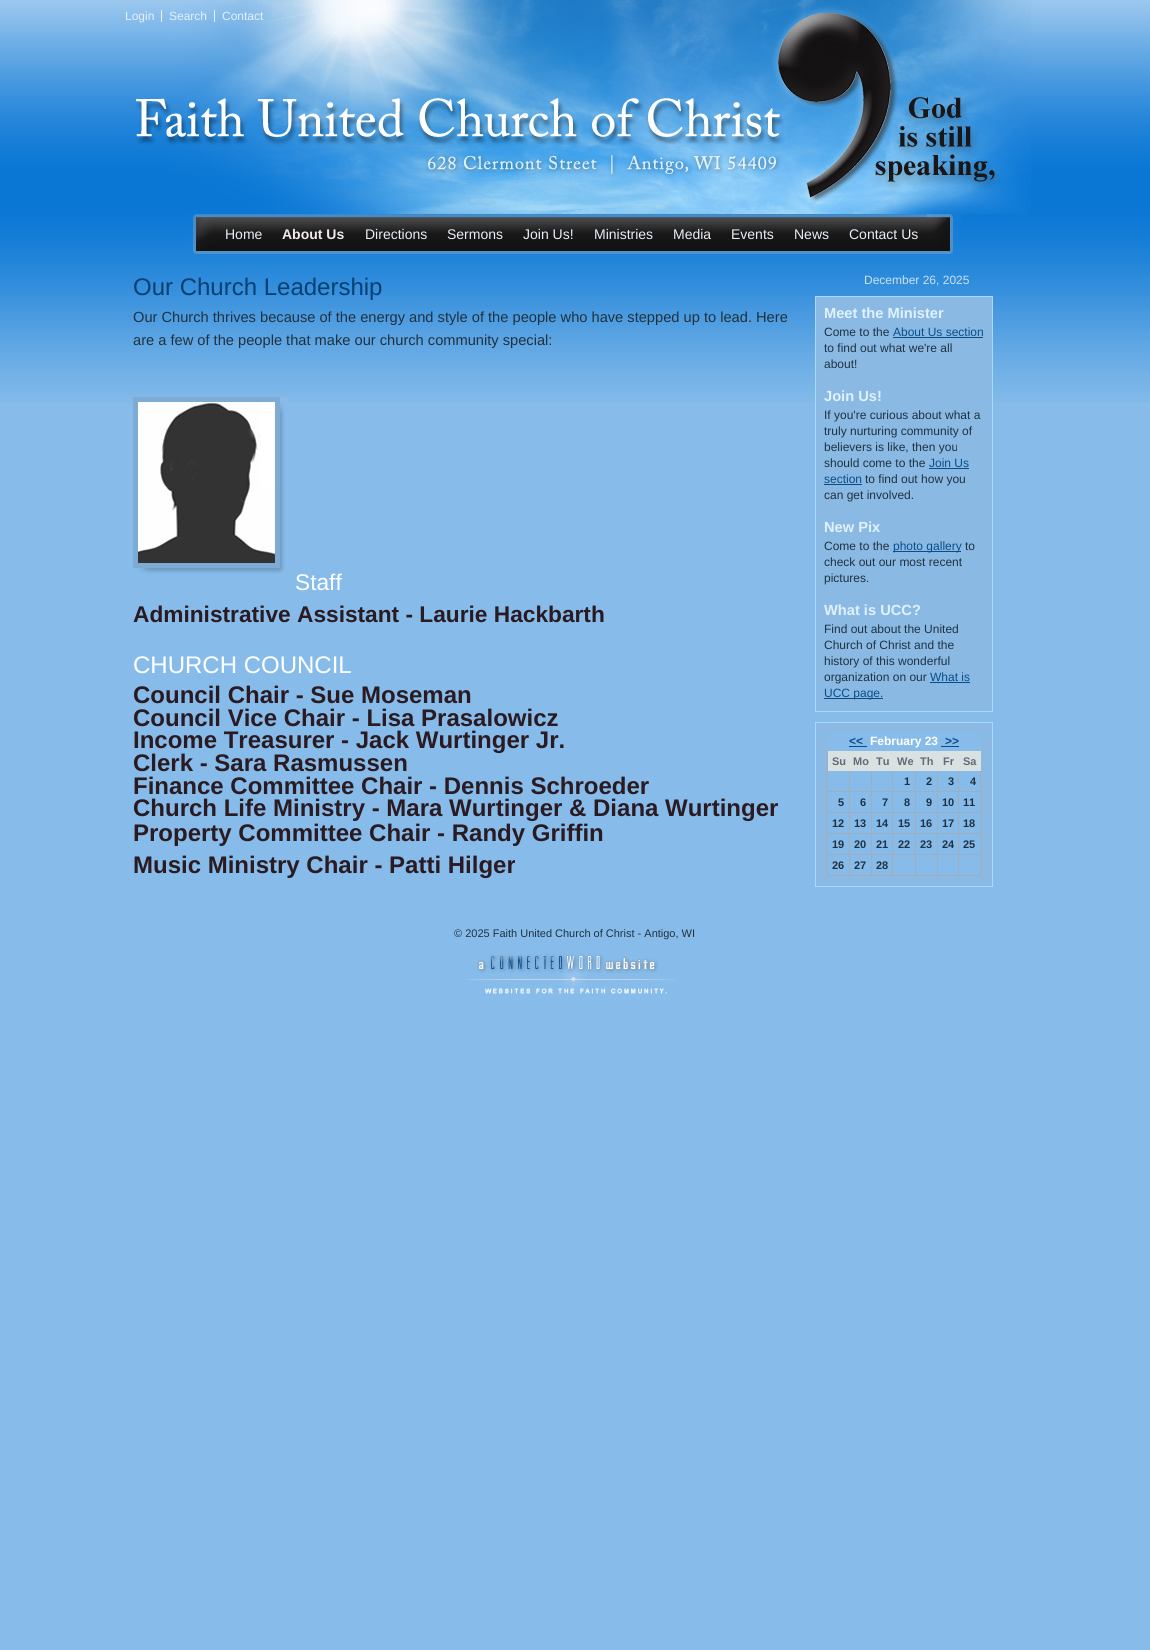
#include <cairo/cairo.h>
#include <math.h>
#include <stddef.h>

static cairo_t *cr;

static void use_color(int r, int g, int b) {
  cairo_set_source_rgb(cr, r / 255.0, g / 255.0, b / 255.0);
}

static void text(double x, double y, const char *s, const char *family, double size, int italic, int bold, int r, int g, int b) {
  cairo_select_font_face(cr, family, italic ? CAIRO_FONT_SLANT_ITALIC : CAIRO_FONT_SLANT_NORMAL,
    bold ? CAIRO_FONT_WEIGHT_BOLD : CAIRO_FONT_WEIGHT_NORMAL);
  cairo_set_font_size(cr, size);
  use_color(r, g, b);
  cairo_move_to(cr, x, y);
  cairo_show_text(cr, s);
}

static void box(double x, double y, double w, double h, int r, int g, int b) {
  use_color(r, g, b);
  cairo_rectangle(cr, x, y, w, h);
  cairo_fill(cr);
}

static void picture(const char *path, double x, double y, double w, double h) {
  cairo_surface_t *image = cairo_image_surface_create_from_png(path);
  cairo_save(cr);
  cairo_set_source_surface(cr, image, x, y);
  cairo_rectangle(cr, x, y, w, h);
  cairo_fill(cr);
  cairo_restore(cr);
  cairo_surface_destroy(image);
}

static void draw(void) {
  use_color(135, 188, 234);
  cairo_paint(cr);
  picture("img_01.png", 0, 0, 1150, 403);
  picture("img_02.png", 135, 0, 896, 214);
  box(161, 10, 1, 12, 224, 241, 255);
  box(214, 10, 1, 12, 224, 241, 255);
  picture("img_03.png", 186, 214, 28, 40);
  picture("img_04.png", 214, 214, 713, 40);
  picture("img_05.png", 927, 214, 34, 40);
  picture("img_06.png", 137, 397, 151, 177);
  picture("img_07.png", 133, 397, 152, 177);
  box(133, 397, 147, 171, 125, 171, 212);
  picture("img_08.png", 138, 402, 137, 161);
  use_color(138, 186, 228);
  cairo_rectangle(cr, 815.5, 296.5, 177, 415);
  cairo_fill_preserve(cr);
  use_color(168, 218, 255);
  cairo_set_line_width(cr, 1);
  cairo_stroke(cr);
  box(893, 337, 90, 1, 8, 77, 138);
  box(929, 468, 40, 1, 8, 77, 138);
  box(824, 484, 38, 1, 8, 77, 138);
  box(893, 551, 68, 1, 8, 77, 138);
  box(930, 682, 40, 1, 8, 77, 138);
  box(824, 698, 59, 1, 8, 77, 138);
  use_color(138, 186, 228);
  cairo_rectangle(cr, 815.5, 722.5, 177, 164);
  cairo_fill_preserve(cr);
  use_color(168, 218, 255);
  cairo_stroke(cr);
  box(827, 751, 1, 125, 162, 173, 188);
  box(827, 731, 154, 20, 135, 188, 234);
  box(849, 746, 18, 1, 8, 77, 138);
  box(941, 746, 18, 1, 8, 77, 138);
  box(828, 751, 153, 20, 217, 226, 225);
  box(828, 771, 21, 20, 135, 188, 234);
  box(849, 771, 1, 105, 162, 173, 188);
  box(828, 791, 22, 1, 162, 173, 188);
  box(850, 771, 21, 20, 135, 188, 234);
  box(871, 771, 1, 105, 162, 173, 188);
  box(850, 791, 22, 1, 162, 173, 188);
  box(872, 771, 20, 20, 135, 188, 234);
  box(892, 771, 1, 105, 162, 173, 188);
  box(872, 791, 21, 1, 162, 173, 188);
  box(893, 771, 22, 20, 135, 188, 234);
  box(915, 771, 1, 105, 162, 173, 188);
  box(893, 791, 23, 1, 162, 173, 188);
  box(916, 771, 21, 20, 135, 188, 234);
  box(937, 771, 1, 105, 162, 173, 188);
  box(916, 791, 22, 1, 162, 173, 188);
  box(938, 771, 20, 20, 135, 188, 234);
  box(958, 771, 1, 105, 162, 173, 188);
  box(938, 791, 21, 1, 162, 173, 188);
  box(959, 771, 21, 20, 135, 188, 234);
  box(980, 771, 1, 105, 162, 173, 188);
  box(959, 791, 22, 1, 162, 173, 188);
  box(828, 792, 21, 20, 135, 188, 234);
  box(828, 812, 153, 1, 162, 173, 188);
  box(850, 792, 21, 20, 135, 188, 234);
  box(872, 792, 20, 20, 135, 188, 234);
  box(893, 792, 22, 20, 135, 188, 234);
  box(916, 792, 21, 20, 135, 188, 234);
  box(938, 792, 20, 20, 135, 188, 234);
  box(959, 792, 21, 20, 135, 188, 234);
  box(828, 813, 21, 20, 135, 188, 234);
  box(828, 833, 153, 1, 162, 173, 188);
  box(850, 813, 21, 20, 135, 188, 234);
  box(872, 813, 20, 20, 135, 188, 234);
  box(893, 813, 22, 20, 135, 188, 234);
  box(916, 813, 21, 20, 135, 188, 234);
  box(938, 813, 20, 20, 135, 188, 234);
  box(959, 813, 21, 20, 135, 188, 234);
  box(828, 834, 21, 20, 135, 188, 234);
  box(828, 854, 153, 1, 162, 173, 188);
  box(850, 834, 21, 20, 135, 188, 234);
  box(872, 834, 20, 20, 135, 188, 234);
  box(893, 834, 22, 20, 135, 188, 234);
  box(916, 834, 21, 20, 135, 188, 234);
  box(938, 834, 20, 20, 135, 188, 234);
  box(959, 834, 21, 20, 135, 188, 234);
  box(828, 855, 21, 20, 135, 188, 234);
  box(828, 875, 153, 1, 162, 173, 188);
  box(850, 855, 21, 20, 135, 188, 234);
  box(872, 855, 20, 20, 135, 188, 234);
  box(893, 855, 22, 20, 135, 188, 234);
  box(916, 855, 21, 20, 135, 188, 234);
  box(938, 855, 20, 20, 135, 188, 234);
  box(959, 855, 21, 20, 135, 188, 234);
  picture("img_09.png", 466, 953, 210, 48);
  text(125, 20, "Login", "Liberation Sans", 12, 0, 0, 224, 241, 255);
  text(169, 20, "Search", "Liberation Sans", 12, 0, 0, 224, 241, 255);
  text(222, 20, "Contact", "Liberation Sans", 12, 0, 0, 224, 241, 255);
  text(225, 239, "Home", "Liberation Sans", 14, 0, 0, 231, 239, 246);
  text(282, 239, "About Us", "Liberation Sans", 14, 0, 1, 242, 233, 233);
  text(365, 239, "Directions", "Liberation Sans", 14, 0, 0, 231, 239, 246);
  text(447, 239, "Sermons", "Liberation Sans", 14, 0, 0, 231, 239, 246);
  text(523, 239, "Join Us!", "Liberation Sans", 14, 0, 0, 231, 239, 246);
  text(594, 239, "Ministries", "Liberation Sans", 14, 0, 0, 231, 239, 246);
  text(673, 239, "Media", "Liberation Sans", 14, 0, 0, 231, 239, 246);
  text(731, 239, "Events", "Liberation Sans", 14, 0, 0, 231, 239, 246);
  text(794, 239, "News", "Liberation Sans", 14, 0, 0, 231, 239, 246);
  text(849, 239, "Contact Us", "Liberation Sans", 14, 0, 0, 231, 239, 246);
  text(133, 295, "Our Church Leadership", "Liberation Sans", 24, 0, 0, 7, 63, 112);
  text(133, 322, "Our Church thrives because of the energy and style of the people who have stepped up to lead. Here", "Liberation Sans", 14.65, 0, 0, 31, 49, 64);
  text(133, 345, "are a few of the people that make our church community special:", "Liberation Sans", 14.65, 0, 0, 31, 49, 64);
  text(295, 590, "Staff", "Liberation Sans", 22.7, 0, 0, 255, 255, 255);
  text(133, 622, "Administrative Assistant - Laurie Hackbarth", "Liberation Sans", 22.7, 0, 1, 42, 26, 34);
  text(133, 673, "CHURCH COUNCIL", "Liberation Sans", 24, 0, 0, 255, 255, 255);
  text(133, 703, "Council Chair - Sue Moseman", "Liberation Sans", 24, 0, 1, 42, 26, 34);
  text(133, 726, "Council Vice Chair - Lisa Prasalowicz", "Liberation Sans", 24, 0, 1, 42, 26, 34);
  text(133, 748, "Income Treasurer - Jack Wurtinger Jr.", "Liberation Sans", 24, 0, 1, 42, 26, 34);
  text(133, 771, "Clerk - Sara Rasmussen", "Liberation Sans", 24, 0, 1, 42, 26, 34);
  text(133, 794, "Finance Committee Chair - Dennis Schroeder", "Liberation Sans", 24, 0, 1, 42, 26, 34);
  text(133, 816, "Church Life Ministry - Mara Wurtinger & Diana Wurtinger", "Liberation Sans", 24, 0, 1, 42, 26, 34);
  text(133, 841, "Property Committee Chair - Randy Griffin", "Liberation Sans", 24, 0, 1, 42, 26, 34);
  text(133, 873, "Music Ministry Chair - Patti Hilger", "Liberation Sans", 24, 0, 1, 42, 26, 34);
  text(864, 284, "December 26, 2025", "Liberation Sans", 12, 0, 0, 203, 224, 242);
  text(824, 318, "Meet the Minister", "Liberation Sans", 14.65, 0, 1, 224, 241, 255);
  text(824, 336, "Come to the", "Liberation Sans", 12, 0, 0, 31, 49, 64);
  text(893, 336, "About Us section", "Liberation Sans", 12, 0, 0, 8, 77, 138);
  text(824, 352, "to find out what we're all", "Liberation Sans", 12, 0, 0, 31, 49, 64);
  text(824, 368, "about!", "Liberation Sans", 12, 0, 0, 31, 49, 64);
  text(824, 401, "Join Us!", "Liberation Sans", 14.65, 0, 1, 224, 241, 255);
  text(824, 419, "If you're curious about what a", "Liberation Sans", 12, 0, 0, 31, 49, 64);
  text(824, 435, "truly nurturing community of", "Liberation Sans", 12, 0, 0, 31, 49, 64);
  text(824, 451, "believers is like, then you", "Liberation Sans", 12, 0, 0, 31, 49, 64);
  text(824, 467, "should come to the", "Liberation Sans", 12, 0, 0, 31, 49, 64);
  text(929, 467, "Join Us", "Liberation Sans", 12, 0, 0, 8, 77, 138);
  text(824, 483, "section", "Liberation Sans", 12, 0, 0, 8, 77, 138);
  text(865, 483, "to find out how you", "Liberation Sans", 12, 0, 0, 31, 49, 64);
  text(824, 499, "can get involved.", "Liberation Sans", 12, 0, 0, 31, 49, 64);
  text(824, 532, "New Pix", "Liberation Sans", 14.65, 0, 1, 224, 241, 255);
  text(824, 550, "Come to the", "Liberation Sans", 12, 0, 0, 31, 49, 64);
  text(893, 550, "photo gallery", "Liberation Sans", 12, 0, 0, 8, 77, 138);
  text(965, 550, "to", "Liberation Sans", 12, 0, 0, 31, 49, 64);
  text(824, 566, "check out our most recent", "Liberation Sans", 12, 0, 0, 31, 49, 64);
  text(824, 582, "pictures.", "Liberation Sans", 12, 0, 0, 31, 49, 64);
  text(824, 615, "What is UCC?", "Liberation Sans", 14.65, 0, 1, 224, 241, 255);
  text(824, 633, "Find out about the United", "Liberation Sans", 12, 0, 0, 31, 49, 64);
  text(824, 649, "Church of Christ and the", "Liberation Sans", 12, 0, 0, 31, 49, 64);
  text(824, 665, "history of this wonderful", "Liberation Sans", 12, 0, 0, 31, 49, 64);
  text(824, 681, "organization on our", "Liberation Sans", 12, 0, 0, 31, 49, 64);
  text(930, 681, "What is", "Liberation Sans", 12, 0, 0, 8, 77, 138);
  text(824, 697, "UCC page.", "Liberation Sans", 12, 0, 0, 8, 77, 138);
  text(849, 745, "<<", "Liberation Sans", 12, 0, 1, 8, 77, 138);
  text(870, 745, "February 23", "Liberation Sans", 12, 0, 1, 255, 255, 255);
  text(945, 745, ">>", "Liberation Sans", 12, 0, 1, 8, 77, 138);
  text(832, 765, "Su", "Liberation Sans", 11, 0, 1, 97, 107, 118);
  text(853, 765, "Mo", "Liberation Sans", 11, 0, 1, 97, 107, 118);
  text(876, 765, "Tu", "Liberation Sans", 11, 0, 1, 97, 107, 118);
  text(897, 765, "We", "Liberation Sans", 11, 0, 1, 97, 107, 118);
  text(920, 765, "Th", "Liberation Sans", 11, 0, 1, 97, 107, 118);
  text(943, 765, "Fr", "Liberation Sans", 11, 0, 1, 97, 107, 118);
  text(963, 765, "Sa", "Liberation Sans", 11, 0, 1, 97, 107, 118);
  text(904, 785, "1", "Liberation Sans", 11, 0, 1, 31, 49, 64);
  text(926, 785, "2", "Liberation Sans", 11, 0, 1, 31, 49, 64);
  text(948, 785, "3", "Liberation Sans", 11, 0, 1, 31, 49, 64);
  text(970, 785, "4", "Liberation Sans", 11, 0, 1, 31, 49, 64);
  text(838, 806, "5", "Liberation Sans", 11, 0, 1, 31, 49, 64);
  text(860, 806, "6", "Liberation Sans", 11, 0, 1, 31, 49, 64);
  text(882, 806, "7", "Liberation Sans", 11, 0, 1, 31, 49, 64);
  text(904, 806, "8", "Liberation Sans", 11, 0, 1, 31, 49, 64);
  text(926, 806, "9", "Liberation Sans", 11, 0, 1, 31, 49, 64);
  text(942, 806, "10", "Liberation Sans", 11, 0, 1, 31, 49, 64);
  text(963, 806, "11", "Liberation Sans", 11, 0, 1, 31, 49, 64);
  text(832, 827, "12", "Liberation Sans", 11, 0, 1, 31, 49, 64);
  text(854, 827, "13", "Liberation Sans", 11, 0, 1, 31, 49, 64);
  text(876, 827, "14", "Liberation Sans", 11, 0, 1, 31, 49, 64);
  text(898, 827, "15", "Liberation Sans", 11, 0, 1, 31, 49, 64);
  text(920, 827, "16", "Liberation Sans", 11, 0, 1, 31, 49, 64);
  text(942, 827, "17", "Liberation Sans", 11, 0, 1, 31, 49, 64);
  text(963, 827, "18", "Liberation Sans", 11, 0, 1, 31, 49, 64);
  text(832, 848, "19", "Liberation Sans", 11, 0, 1, 31, 49, 64);
  text(854, 848, "20", "Liberation Sans", 11, 0, 1, 31, 49, 64);
  text(876, 848, "21", "Liberation Sans", 11, 0, 1, 31, 49, 64);
  text(898, 848, "22", "Liberation Sans", 11, 0, 1, 31, 49, 64);
  text(920, 848, "23", "Liberation Sans", 11, 0, 1, 31, 49, 64);
  text(942, 848, "24", "Liberation Sans", 11, 0, 1, 31, 49, 64);
  text(963, 848, "25", "Liberation Sans", 11, 0, 1, 31, 49, 64);
  text(832, 869, "26", "Liberation Sans", 11, 0, 1, 31, 49, 64);
  text(854, 869, "27", "Liberation Sans", 11, 0, 1, 31, 49, 64);
  text(876, 869, "28", "Liberation Sans", 11, 0, 1, 31, 49, 64);
  text(454, 937, "© 2025 Faith United Church of Christ - Antigo, WI", "Liberation Sans", 11, 0, 0, 31, 49, 64);
}

int main(void) {
  cairo_surface_t *surface = cairo_image_surface_create(CAIRO_FORMAT_RGB24, 1150, 1650);
  cr = cairo_create(surface);
  cairo_font_options_t *options = cairo_font_options_create();
  cairo_font_options_set_hint_metrics(options, CAIRO_HINT_METRICS_OFF);
  cairo_font_options_set_hint_style(options, CAIRO_HINT_STYLE_NONE);
  cairo_set_font_options(cr, options);
  cairo_set_miter_limit(cr, 4);
  draw();
  cairo_surface_write_to_png(surface, "out.png");
  cairo_font_options_destroy(options);
  cairo_destroy(cr);
  cairo_surface_destroy(surface);
  return 0;
}
